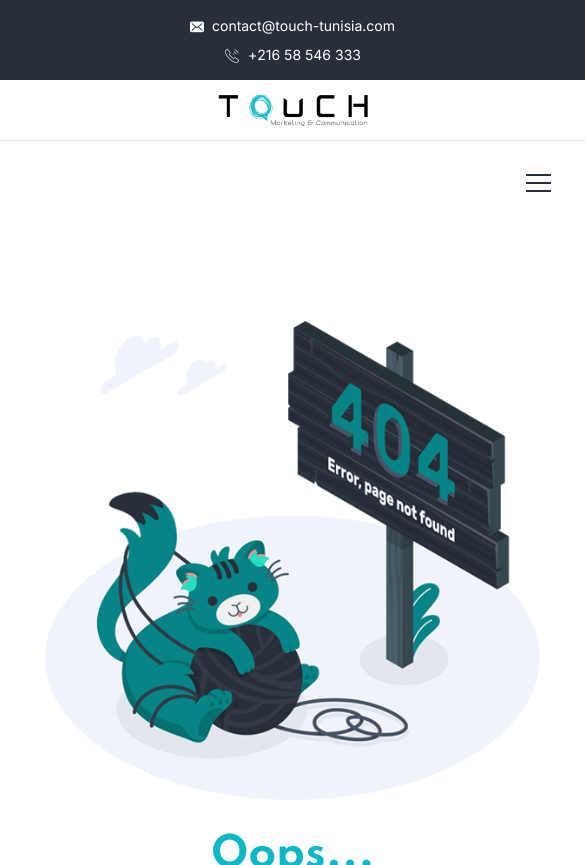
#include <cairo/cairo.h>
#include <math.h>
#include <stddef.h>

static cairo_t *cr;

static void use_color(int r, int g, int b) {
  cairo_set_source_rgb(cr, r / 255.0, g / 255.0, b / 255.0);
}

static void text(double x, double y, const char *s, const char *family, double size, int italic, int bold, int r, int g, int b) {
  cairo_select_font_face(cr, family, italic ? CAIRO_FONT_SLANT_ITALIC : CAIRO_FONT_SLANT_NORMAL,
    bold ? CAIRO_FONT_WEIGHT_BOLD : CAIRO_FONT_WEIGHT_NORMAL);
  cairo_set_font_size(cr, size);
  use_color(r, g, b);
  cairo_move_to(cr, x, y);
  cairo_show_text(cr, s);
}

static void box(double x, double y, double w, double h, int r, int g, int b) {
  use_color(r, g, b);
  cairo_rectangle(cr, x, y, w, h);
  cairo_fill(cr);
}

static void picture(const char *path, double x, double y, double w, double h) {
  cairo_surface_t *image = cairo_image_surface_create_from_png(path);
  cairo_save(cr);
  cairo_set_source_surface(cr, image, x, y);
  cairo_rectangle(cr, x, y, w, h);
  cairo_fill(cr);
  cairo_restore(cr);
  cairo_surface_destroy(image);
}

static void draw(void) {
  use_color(255, 255, 255);
  cairo_paint(cr);
  box(0, 0, 585, 80, 40, 47, 59);
  picture("img_01.png", 190, 21, 14, 12);
  picture("img_02.png", 225, 48, 14, 15);
  box(0, 140, 585, 1, 228, 231, 238);
  picture("img_03.png", 218, 94, 150, 32);
  box(526, 174, 25, 2, 40, 47, 59);
  box(526, 182, 25, 2, 40, 47, 59);
  box(526, 190, 25, 2, 40, 47, 59);
  picture("img_04.png", 45, 321, 495, 479);
  text(212, 31, "contact@touch-tunisia.com", "Inter", 14, 0, 0, 255, 255, 255);
  text(248, 60, "+216 58 546 333", "Inter", 14, 0, 0, 255, 255, 255);
  text(211, 867, "Oops...", "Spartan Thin", 40, 0, 1, 15, 182, 198);
}

int main(void) {
  cairo_surface_t *surface = cairo_image_surface_create(CAIRO_FORMAT_RGB24, 585, 865);
  cr = cairo_create(surface);
  cairo_font_options_t *options = cairo_font_options_create();
  cairo_font_options_set_hint_metrics(options, CAIRO_HINT_METRICS_OFF);
  cairo_font_options_set_hint_style(options, CAIRO_HINT_STYLE_NONE);
  cairo_set_font_options(cr, options);
  cairo_set_miter_limit(cr, 4);
  draw();
  cairo_surface_write_to_png(surface, "out.png");
  cairo_font_options_destroy(options);
  cairo_destroy(cr);
  cairo_surface_destroy(surface);
  return 0;
}
